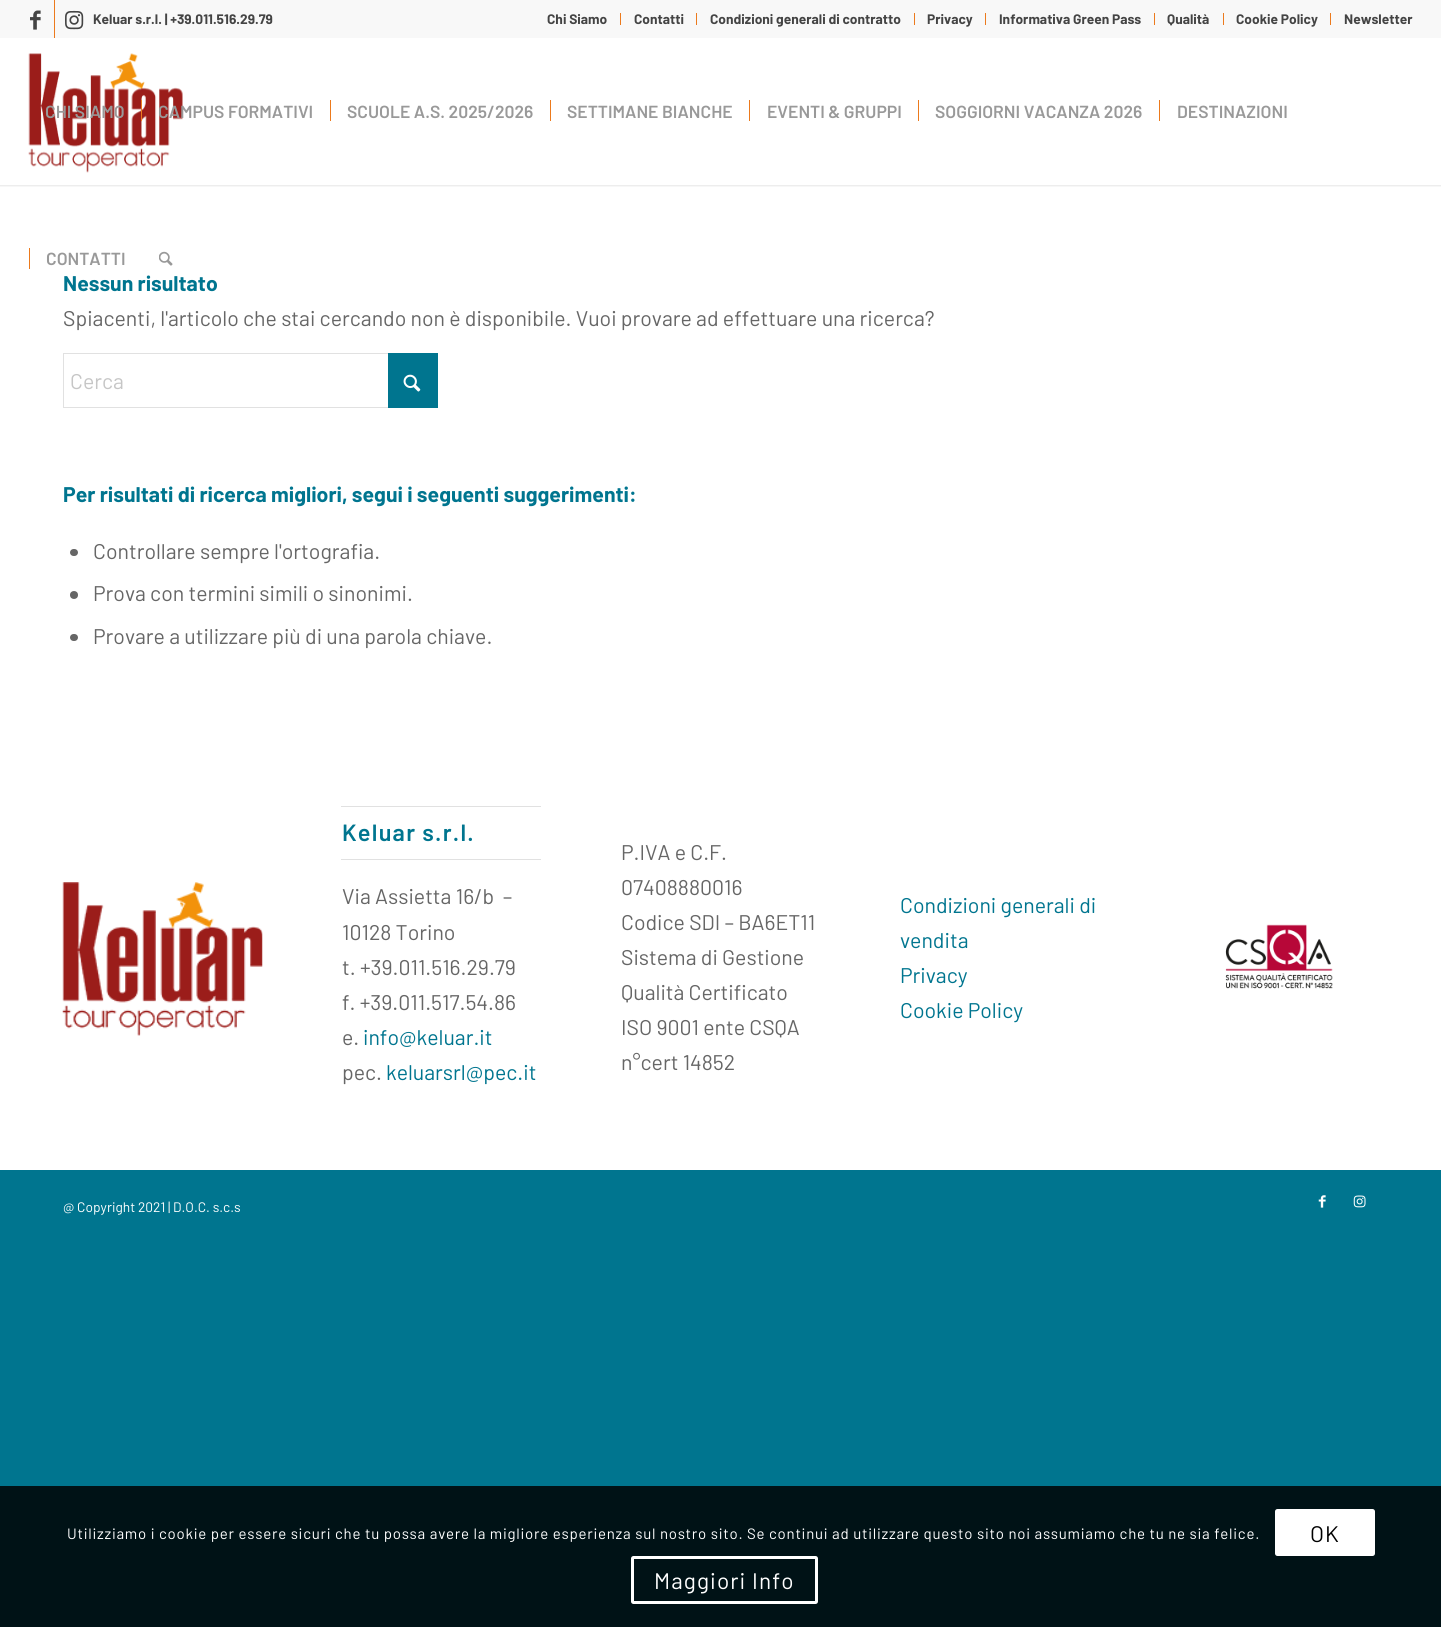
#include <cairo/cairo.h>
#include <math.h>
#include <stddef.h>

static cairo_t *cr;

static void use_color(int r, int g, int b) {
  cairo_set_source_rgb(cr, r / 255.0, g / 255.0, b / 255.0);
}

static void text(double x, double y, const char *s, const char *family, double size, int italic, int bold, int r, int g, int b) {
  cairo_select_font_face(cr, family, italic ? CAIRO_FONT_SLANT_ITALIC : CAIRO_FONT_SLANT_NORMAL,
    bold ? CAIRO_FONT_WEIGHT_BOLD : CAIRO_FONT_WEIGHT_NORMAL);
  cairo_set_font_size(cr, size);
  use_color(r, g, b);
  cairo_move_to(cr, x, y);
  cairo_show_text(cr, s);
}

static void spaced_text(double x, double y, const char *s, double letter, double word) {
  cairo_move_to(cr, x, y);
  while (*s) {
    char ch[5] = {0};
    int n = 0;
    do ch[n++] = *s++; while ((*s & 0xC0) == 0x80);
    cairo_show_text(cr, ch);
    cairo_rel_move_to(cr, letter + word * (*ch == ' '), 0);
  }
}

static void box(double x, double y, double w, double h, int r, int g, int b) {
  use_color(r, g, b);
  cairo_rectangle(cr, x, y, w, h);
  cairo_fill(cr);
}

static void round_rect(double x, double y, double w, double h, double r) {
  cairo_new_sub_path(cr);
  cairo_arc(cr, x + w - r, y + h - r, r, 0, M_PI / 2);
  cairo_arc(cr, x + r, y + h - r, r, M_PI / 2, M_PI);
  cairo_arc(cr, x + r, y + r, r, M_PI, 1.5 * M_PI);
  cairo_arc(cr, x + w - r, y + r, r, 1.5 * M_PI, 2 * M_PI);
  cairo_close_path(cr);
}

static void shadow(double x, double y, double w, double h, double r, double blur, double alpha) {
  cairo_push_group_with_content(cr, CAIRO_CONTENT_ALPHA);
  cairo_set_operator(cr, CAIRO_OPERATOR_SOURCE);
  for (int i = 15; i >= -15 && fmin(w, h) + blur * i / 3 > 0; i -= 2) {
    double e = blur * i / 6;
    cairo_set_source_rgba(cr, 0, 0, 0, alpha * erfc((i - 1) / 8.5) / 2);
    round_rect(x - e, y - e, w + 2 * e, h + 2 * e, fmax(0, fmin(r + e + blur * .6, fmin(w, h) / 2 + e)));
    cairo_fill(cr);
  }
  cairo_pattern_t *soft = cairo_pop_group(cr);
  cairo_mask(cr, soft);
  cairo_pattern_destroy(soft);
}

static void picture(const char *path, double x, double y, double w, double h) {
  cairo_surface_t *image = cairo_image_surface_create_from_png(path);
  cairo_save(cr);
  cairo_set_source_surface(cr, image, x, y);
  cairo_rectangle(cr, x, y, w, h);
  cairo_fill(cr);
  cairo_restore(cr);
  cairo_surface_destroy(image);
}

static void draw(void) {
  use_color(0, 117, 143);
  cairo_paint(cr);
  box(0, 38, 1441, 1132, 255, 255, 255);
  cairo_save(cr);
  cairo_rectangle(cr, 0, 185, 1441, 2);
  cairo_clip(cr);
  use_color(0, 0, 0);
  shadow(-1, -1, 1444, 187, 0, 1, 0.1);
  cairo_restore(cr);
  box(0, 0, 1441, 38, 248, 248, 248);
  box(54, 0, 1, 38, 236, 122, 29);
  picture("img_01.png", 30, 10, 11, 20);
  picture("img_02.png", 65, 10, 19, 20);
  box(620, 13, 1, 12, 236, 122, 29);
  box(696, 13, 1, 12, 236, 122, 29);
  box(914, 13, 1, 12, 236, 122, 29);
  box(985, 13, 1, 12, 236, 122, 29);
  box(1154, 13, 1, 12, 236, 122, 29);
  box(1223, 13, 1, 12, 236, 122, 29);
  box(1330, 13, 1, 12, 236, 122, 29);
  picture("img_03.png", 28, 53, 155, 120);
  box(141, 100, 1, 21, 236, 122, 29);
  box(330, 100, 1, 21, 236, 122, 29);
  box(550, 100, 1, 21, 236, 122, 29);
  box(749, 100, 1, 21, 236, 122, 29);
  box(918, 100, 1, 21, 236, 122, 29);
  box(1159, 100, 1, 21, 236, 122, 29);
  box(29, 248, 1, 21, 236, 122, 29);
  picture("img_04.png", 159, 251, 14, 15);
  cairo_rectangle(cr, 63.5, 353.5, 374, 54);
  use_color(225, 225, 225);
  cairo_set_line_width(cr, 1);
  cairo_stroke(cr);
  box(388, 353, 50, 55, 0, 117, 143);
  picture("img_05.png", 403, 374, 18, 18);
  use_color(102, 102, 102);
  round_rect(70, 549, 8, 7, 3.5);
  cairo_fill(cr);
  cairo_arc(cr, 74, 595, 4, 0, 2 * M_PI);
  cairo_fill(cr);
  round_rect(70, 634, 8, 7, 3.5);
  cairo_fill(cr);
  picture("img_06.png", 62, 882, 201, 154);
  box(341, 806, 200, 1, 225, 225, 225);
  box(341, 859, 200, 1, 225, 225, 225);
  picture("img_07.png", 1225, 924, 108, 65);
  picture("img_08.png", 1318, 1195, 8, 13);
  picture("img_09.png", 1353, 1195, 13, 13);
  box(0, 1486, 1441, 141, 0, 18, 22);
  use_color(255, 255, 255);
  round_rect(1275, 1509, 100, 47, 2.5);
  cairo_fill(cr);
  round_rect(632.5, 1557.5, 184, 45, 1);
  cairo_set_line_width(cr, 3);
  cairo_stroke(cr);
  text(93, 24, "Keluar s.r.l. | +39.011.516.29.79", "Barlow", 13.75, 0, 1, 68, 68, 68);
  text(547, 24, "Chi Siamo", "Barlow", 13.75, 0, 1, 68, 68, 68);
  text(634, 24, "Contatti", "Barlow", 13.75, 0, 1, 68, 68, 68);
  text(710, 24, "Condizioni generali di contratto", "Barlow", 13.75, 0, 1, 68, 68, 68);
  text(927, 24, "Privacy", "Barlow", 13.75, 0, 1, 68, 68, 68);
  text(999, 24, "Informativa Green Pass", "Barlow", 13.75, 0, 1, 68, 68, 68);
  text(1167, 24, "Qualità", "Barlow", 13.75, 0, 1, 68, 68, 68);
  text(1236, 24, "Cookie Policy", "Barlow", 13.75, 0, 1, 68, 68, 68);
  text(1344, 24, "Newsletter", "Barlow", 13.75, 0, 1, 68, 68, 68);
  text(45, 118, "CHI SIAMO", "Barlow SemiBold", 17.5, 0, 0, 153, 153, 153);
  text(158, 118, "CAMPUS FORMATIVI", "Barlow SemiBold", 17.5, 0, 0, 153, 153, 153);
  text(347, 118, "SCUOLE A.S. 2025/2026", "Barlow SemiBold", 17.5, 0, 0, 153, 153, 153);
  text(567, 118, "SETTIMANE BIANCHE", "Barlow SemiBold", 17.5, 0, 0, 153, 153, 153);
  text(767, 118, "EVENTI & GRUPPI", "Barlow SemiBold", 17.5, 0, 0, 153, 153, 153);
  text(935, 118, "SOGGIORNI VACANZA 2026", "Barlow SemiBold", 17.5, 0, 0, 153, 153, 153);
  text(1177, 118, "DESTINAZIONI", "Barlow SemiBold", 17.5, 0, 0, 153, 153, 153);
  text(46, 265, "CONTATTI", "Barlow SemiBold", 17.5, 0, 0, 153, 153, 153);
  text(63, 291, "Nessun risultato", "Barlow", 21.25, 0, 1, 0, 117, 143);
  text(63, 326, "Spiacenti, l'articolo che stai cercando non è disponibile. Vuoi provare ad effettuare una ricerca?", "Barlow", 21.25, 0, 0, 102, 102, 102);
  text(70, 389, "Cerca", "Barlow", 21.25, 0, 0, 198, 198, 198);
  text(63, 502, "Per risultati di ricerca migliori, segui i seguenti suggerimenti:", "Barlow", 21.25, 0, 1, 0, 117, 143);
  text(93, 559, "Controllare sempre l'ortografia.", "Barlow", 21.25, 0, 0, 102, 102, 102);
  text(93, 601, "Prova con termini simili o sinonimi.", "Barlow", 21.25, 0, 0, 102, 102, 102);
  text(93, 644, "Provare a utilizzare più di una parola chiave.", "Barlow", 21.25, 0, 0, 102, 102, 102);
  cairo_select_font_face(cr, "Barlow SemiBold", CAIRO_FONT_SLANT_NORMAL, CAIRO_FONT_WEIGHT_NORMAL);
  cairo_set_font_size(cr, 23.5);
  use_color(0, 117, 143);
  spaced_text(342, 841, "Keluar s.r.l.", 1.25, 0);
  text(342, 904, "Via Assietta 16/b  –", "Barlow", 21.25, 0, 0, 102, 102, 102);
  text(342, 940, "10128 Torino", "Barlow", 21.25, 0, 0, 102, 102, 102);
  text(342, 975, "t. +39.011.516.29.79", "Barlow", 21.25, 0, 0, 102, 102, 102);
  text(342, 1010, "f. +39.011.517.54.86", "Barlow", 21.25, 0, 0, 102, 102, 102);
  text(342, 1045, "e.", "Barlow", 21.25, 0, 0, 102, 102, 102);
  text(363, 1045, "info@keluar.it", "Barlow", 21.25, 0, 0, 0, 117, 143);
  text(342, 1080, "pec.", "Barlow", 21.25, 0, 0, 102, 102, 102);
  text(386, 1080, "keluarsrl@pec.it", "Barlow", 21.25, 0, 0, 0, 117, 143);
  text(621, 860, "P.IVA e C.F.", "Barlow", 21.25, 0, 0, 102, 102, 102);
  text(621, 895, "07408880016", "Barlow", 21.25, 0, 0, 102, 102, 102);
  text(621, 930, "Codice SDI – BA6ET11", "Barlow", 21.25, 0, 0, 102, 102, 102);
  text(621, 965, "Sistema di Gestione", "Barlow", 21.25, 0, 0, 102, 102, 102);
  text(621, 1000, "Qualità Certificato", "Barlow", 21.25, 0, 0, 102, 102, 102);
  text(621, 1035, "ISO 9001 ente CSQA", "Barlow", 21.25, 0, 0, 102, 102, 102);
  text(621, 1070, "n°cert 14852", "Barlow", 21.25, 0, 0, 102, 102, 102);
  text(900, 913, "Condizioni generali di", "Barlow", 21.25, 0, 0, 0, 117, 143);
  text(900, 948, "vendita", "Barlow", 21.25, 0, 0, 0, 117, 143);
  text(900, 983, "Privacy", "Barlow", 21.25, 0, 0, 0, 117, 143);
  text(900, 1018, "Cookie Policy", "Barlow", 21.25, 0, 0, 0, 117, 143);
  text(63, 1212, "@ Copyright 2021 | D.O.C. s.c.s", "Barlow", 13.75, 0, 0, 255, 255, 255);
  cairo_set_font_size(cr, 15);
  spaced_text(67, 1539, "Utilizziamo i cookie per essere sicuri che tu possa avere la migliore esperienza sul nostro sito. Se continui ad utilizzare questo sito noi assumiamo che tu ne sia felice.", 0.75, 0);
  cairo_set_font_size(cr, 22.5);
  use_color(0, 0, 0);
  spaced_text(1310, 1542, "OK", 1.1, 0);
  use_color(255, 255, 255);
  spaced_text(654, 1589, "Maggiori Info", 1.1, 0);
}

int main(void) {
  cairo_surface_t *surface = cairo_image_surface_create(CAIRO_FORMAT_RGB24, 1441, 1627);
  cr = cairo_create(surface);
  cairo_font_options_t *options = cairo_font_options_create();
  cairo_font_options_set_hint_metrics(options, CAIRO_HINT_METRICS_OFF);
  cairo_font_options_set_hint_style(options, CAIRO_HINT_STYLE_NONE);
  cairo_set_font_options(cr, options);
  cairo_set_miter_limit(cr, 4);
  draw();
  cairo_surface_write_to_png(surface, "out.png");
  cairo_font_options_destroy(options);
  cairo_destroy(cr);
  cairo_surface_destroy(surface);
  return 0;
}
